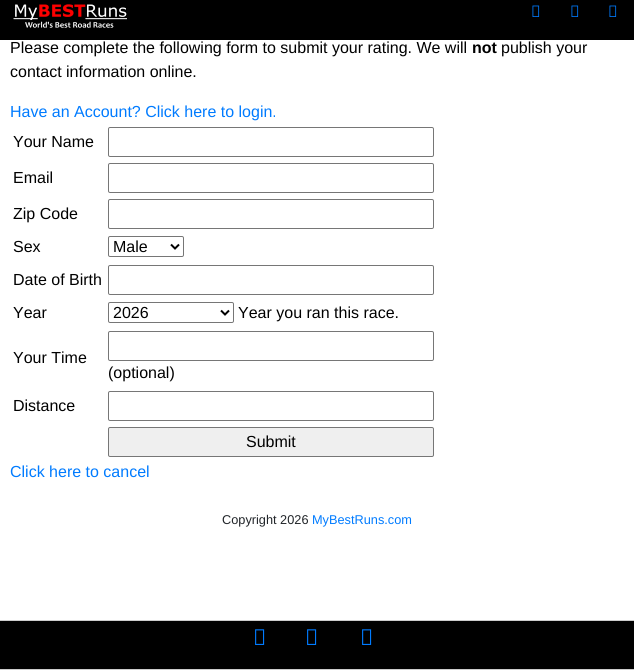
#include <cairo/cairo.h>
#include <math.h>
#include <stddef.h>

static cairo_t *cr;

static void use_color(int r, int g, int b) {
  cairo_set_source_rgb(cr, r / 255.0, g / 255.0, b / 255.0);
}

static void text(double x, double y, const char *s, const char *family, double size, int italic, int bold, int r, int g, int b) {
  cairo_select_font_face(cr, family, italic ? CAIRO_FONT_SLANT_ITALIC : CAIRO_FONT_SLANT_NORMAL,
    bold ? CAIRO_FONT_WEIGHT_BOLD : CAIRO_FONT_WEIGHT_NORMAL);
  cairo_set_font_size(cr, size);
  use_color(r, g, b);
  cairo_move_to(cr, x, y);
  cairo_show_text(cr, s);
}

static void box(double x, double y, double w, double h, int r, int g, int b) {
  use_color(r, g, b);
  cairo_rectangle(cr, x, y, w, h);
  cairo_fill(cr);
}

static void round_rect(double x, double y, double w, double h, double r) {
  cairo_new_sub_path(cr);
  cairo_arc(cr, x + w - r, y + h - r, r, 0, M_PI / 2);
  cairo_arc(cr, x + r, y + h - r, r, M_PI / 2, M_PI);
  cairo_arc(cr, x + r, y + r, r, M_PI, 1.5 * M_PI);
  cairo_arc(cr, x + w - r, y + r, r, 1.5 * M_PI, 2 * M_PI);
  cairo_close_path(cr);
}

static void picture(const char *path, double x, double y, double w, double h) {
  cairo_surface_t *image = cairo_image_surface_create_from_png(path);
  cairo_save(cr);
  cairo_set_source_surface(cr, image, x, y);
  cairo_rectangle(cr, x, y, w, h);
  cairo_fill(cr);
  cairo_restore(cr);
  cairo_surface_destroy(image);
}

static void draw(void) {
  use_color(255, 255, 255);
  cairo_paint(cr);
  box(0, 0, 634, 40, 0, 0, 0);
  picture("img_01.png", 13, 4, 114, 24);
  picture("img_02.png", 532, 5, 8, 12);
  picture("img_02.png", 571, 5, 8, 12);
  picture("img_02.png", 609, 5, 8, 12);
  round_rect(108.5, 127.5, 325, 29, 1.5);
  use_color(118, 118, 118);
  cairo_set_line_width(cr, 1);
  cairo_stroke(cr);
  round_rect(108.5, 163.5, 325, 29, 1.5);
  cairo_stroke(cr);
  round_rect(108.5, 199.5, 325, 29, 1.5);
  cairo_stroke(cr);
  round_rect(108.5, 236.5, 75, 20, 1.5);
  cairo_stroke(cr);
  cairo_new_path(cr);
  cairo_move_to(cr, 171, 244.5);
  cairo_line_to(cr, 175, 248.5);
  cairo_line_to(cr, 179, 244.5);
  use_color(0, 0, 0);
  cairo_set_line_width(cr, 2);
  cairo_stroke(cr);
  round_rect(108.5, 265.5, 325, 29, 1.5);
  use_color(118, 118, 118);
  cairo_set_line_width(cr, 1);
  cairo_stroke(cr);
  round_rect(108.5, 302.5, 125, 20, 1.5);
  cairo_stroke(cr);
  cairo_new_path(cr);
  cairo_move_to(cr, 221, 310.5);
  cairo_line_to(cr, 225, 314.5);
  cairo_line_to(cr, 229, 310.5);
  use_color(0, 0, 0);
  cairo_set_line_width(cr, 2);
  cairo_stroke(cr);
  round_rect(108.5, 331.5, 325, 29, 1.5);
  use_color(118, 118, 118);
  cairo_set_line_width(cr, 1);
  cairo_stroke(cr);
  round_rect(108.5, 391.5, 325, 29, 1.5);
  cairo_stroke(cr);
  use_color(239, 239, 239);
  round_rect(108.5, 427.5, 325, 29, 1.5);
  cairo_fill_preserve(cr);
  use_color(118, 118, 118);
  cairo_stroke(cr);
  box(0, 621, 634, 48, 0, 0, 0);
  box(0, 620, 634, 1, 204, 204, 204);
  box(0, 669, 634, 1, 204, 204, 204);
  picture("img_03.png", 255, 629, 10, 16);
  picture("img_03.png", 307, 629, 10, 16);
  picture("img_03.png", 362, 629, 10, 16);
  text(10, 53, "Please complete the following form to submit your rating. We will", "Liberation Sans", 16, 0, 0, 0, 0, 0);
  text(472, 53, "not", "Liberation Sans", 16, 0, 1, 0, 0, 0);
  text(501, 53, "publish your", "Liberation Sans", 16, 0, 0, 0, 0, 0);
  text(10, 77, "contact information online.", "Liberation Sans", 16, 0, 0, 0, 0, 0);
  text(10, 117, "Have an Account? Click here to login.", "Liberation Sans", 16, 0, 0, 0, 123, 255);
  text(13, 147, "Your Name", "Liberation Sans", 16, 0, 0, 0, 0, 0);
  text(13, 183, "Email", "Liberation Sans", 16, 0, 0, 0, 0, 0);
  text(13, 219, "Zip Code", "Liberation Sans", 16, 0, 0, 0, 0, 0);
  text(13, 252, "Sex", "Liberation Sans", 16, 0, 0, 0, 0, 0);
  text(113, 252, "Male", "Liberation Sans", 16, 0, 0, 0, 0, 0);
  text(13, 285, "Date of Birth", "Liberation Sans", 16, 0, 0, 0, 0, 0);
  text(13, 318, "Year", "Liberation Sans", 16, 0, 0, 0, 0, 0);
  text(113, 318, "2026", "Liberation Sans", 16, 0, 0, 0, 0, 0);
  text(238, 318, "Year you ran this race.", "Liberation Sans", 16, 0, 0, 0, 0, 0);
  text(13, 363, "Your Time", "Liberation Sans", 16, 0, 0, 0, 0, 0);
  text(108, 378, "(optional)", "Liberation Sans", 16, 0, 0, 0, 0, 0);
  text(13, 411, "Distance", "Liberation Sans", 16, 0, 0, 0, 0, 0);
  text(246, 447, "Submit", "Liberation Sans", 16, 0, 0, 0, 0, 0);
  text(10, 477, "Click here to cancel", "Liberation Sans", 16, 0, 0, 0, 123, 255);
  text(222, 524, "Copyright 2026", "Liberation Sans", 12.75, 0, 0, 33, 37, 41);
  text(312, 524, "MyBestRuns.com", "Liberation Sans", 12.75, 0, 0, 0, 123, 255);
}

int main(void) {
  cairo_surface_t *surface = cairo_image_surface_create(CAIRO_FORMAT_RGB24, 634, 670);
  cr = cairo_create(surface);
  cairo_font_options_t *options = cairo_font_options_create();
  cairo_font_options_set_hint_metrics(options, CAIRO_HINT_METRICS_OFF);
  cairo_font_options_set_hint_style(options, CAIRO_HINT_STYLE_NONE);
  cairo_set_font_options(cr, options);
  cairo_set_miter_limit(cr, 4);
  draw();
  cairo_surface_write_to_png(surface, "out.png");
  cairo_font_options_destroy(options);
  cairo_destroy(cr);
  cairo_surface_destroy(surface);
  return 0;
}
